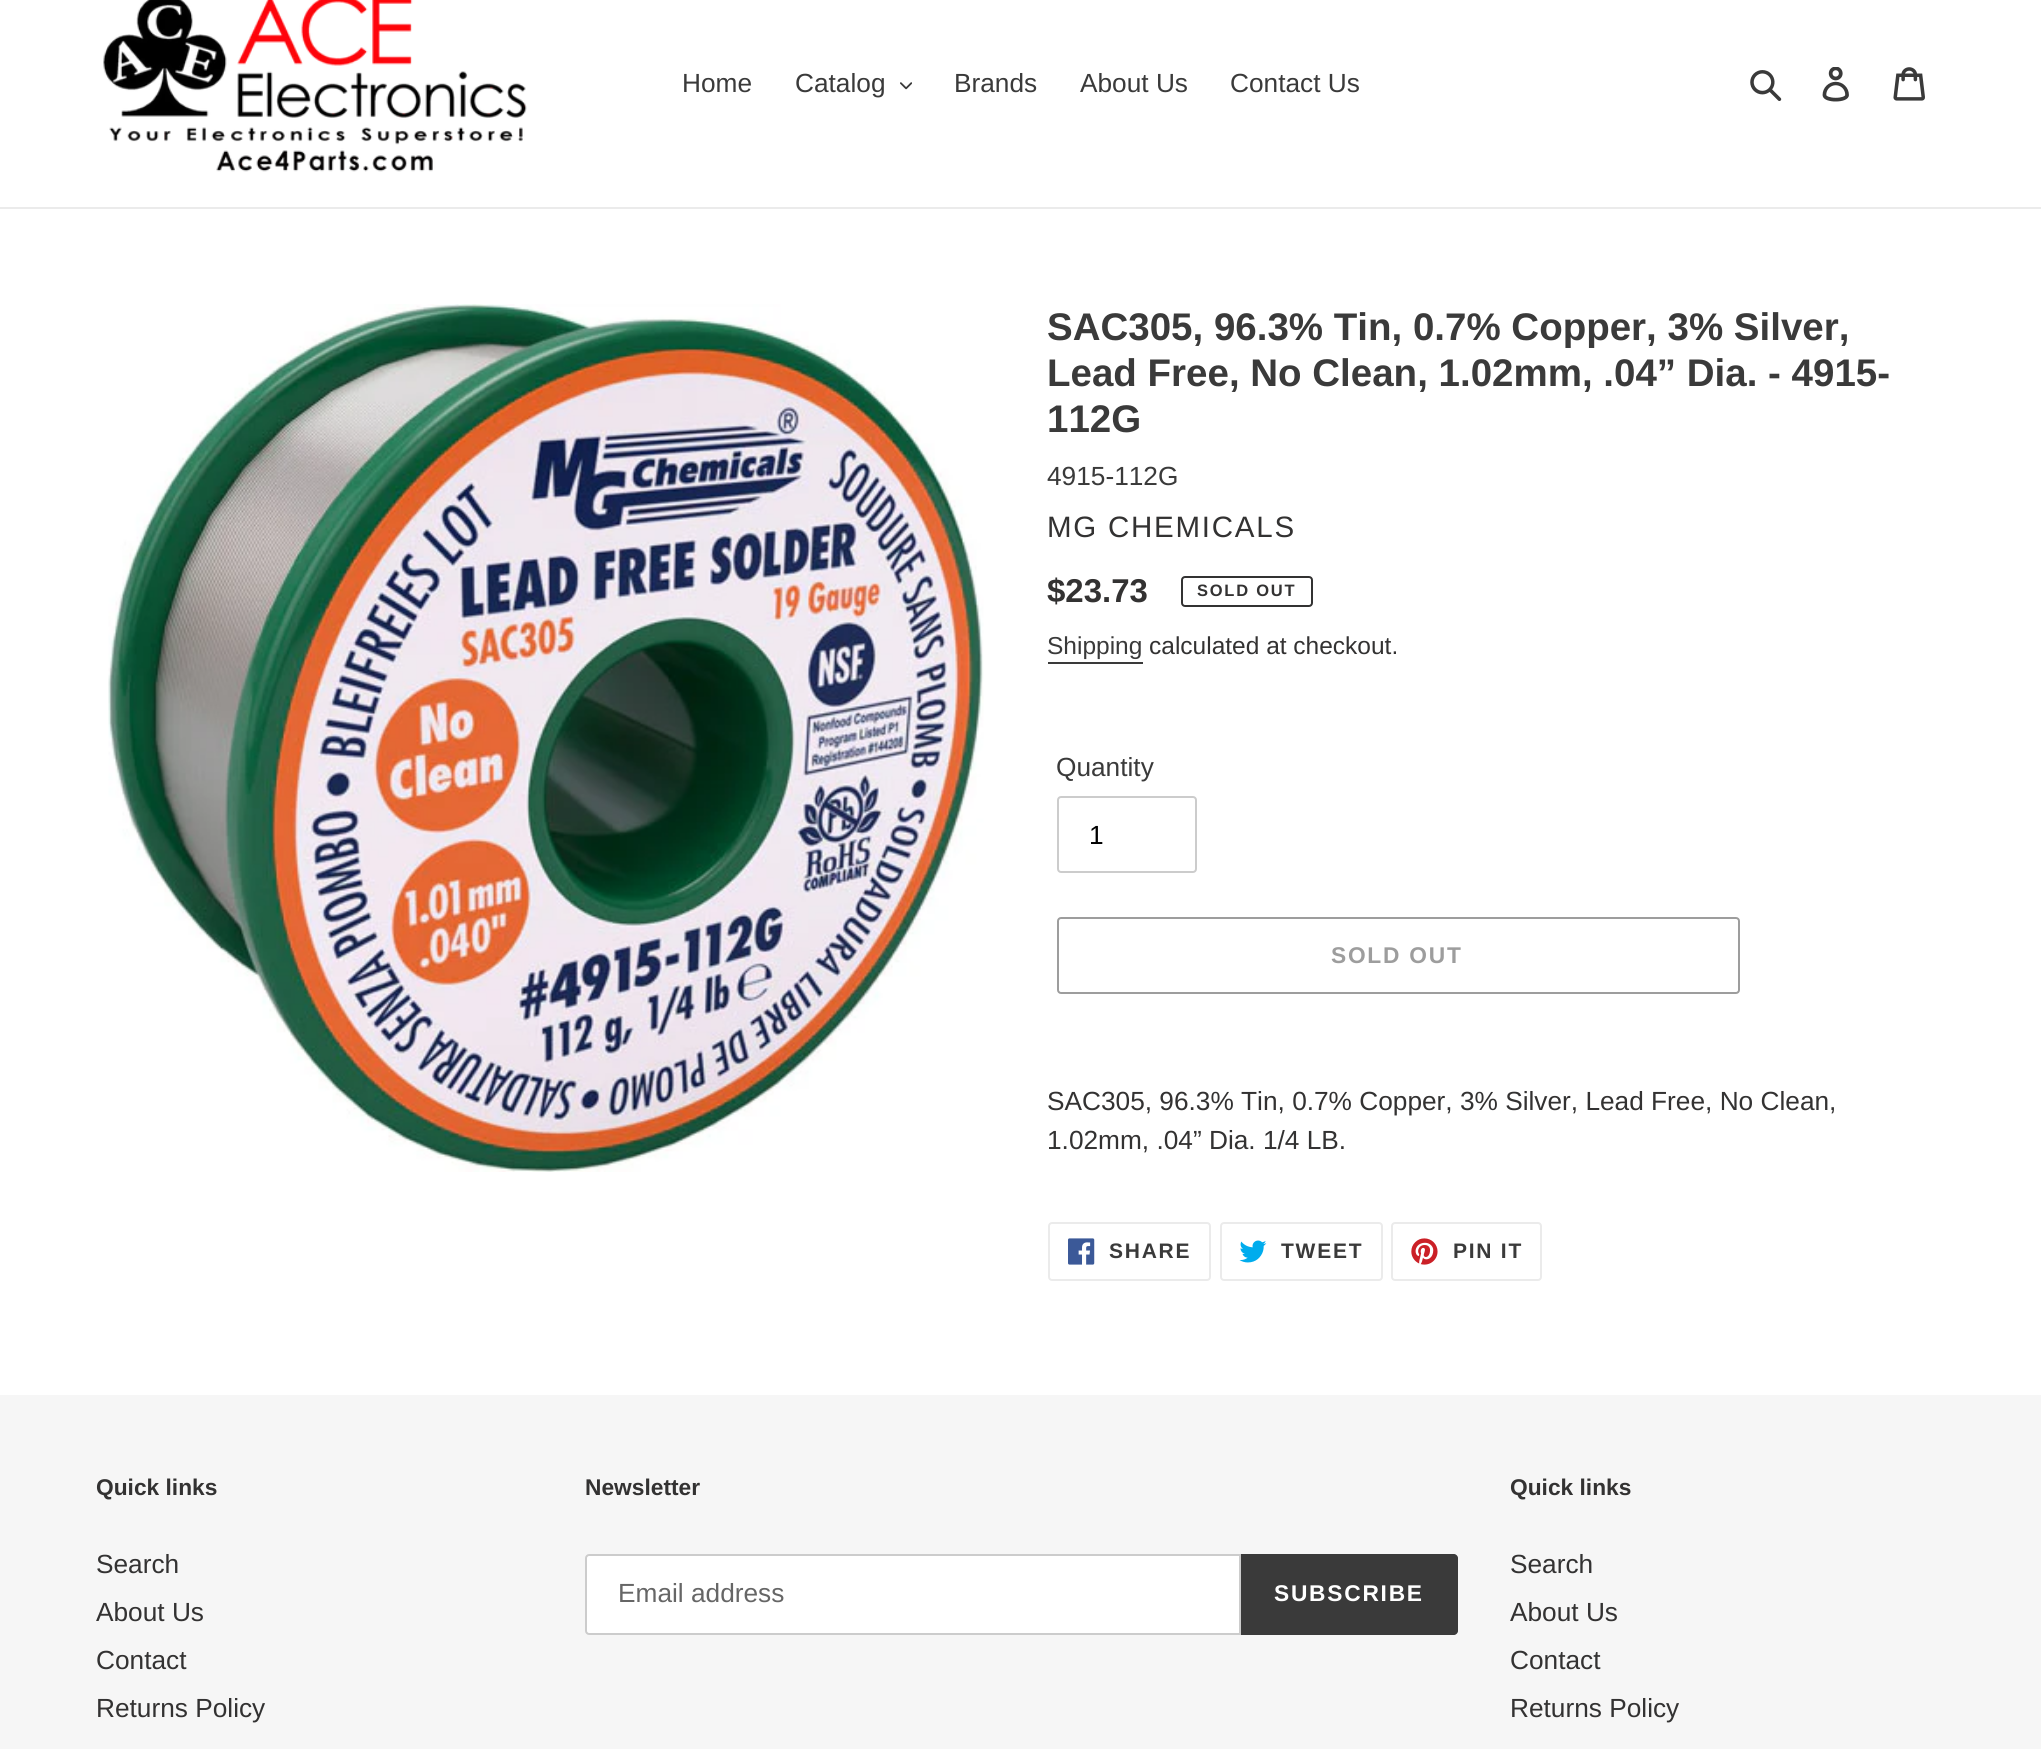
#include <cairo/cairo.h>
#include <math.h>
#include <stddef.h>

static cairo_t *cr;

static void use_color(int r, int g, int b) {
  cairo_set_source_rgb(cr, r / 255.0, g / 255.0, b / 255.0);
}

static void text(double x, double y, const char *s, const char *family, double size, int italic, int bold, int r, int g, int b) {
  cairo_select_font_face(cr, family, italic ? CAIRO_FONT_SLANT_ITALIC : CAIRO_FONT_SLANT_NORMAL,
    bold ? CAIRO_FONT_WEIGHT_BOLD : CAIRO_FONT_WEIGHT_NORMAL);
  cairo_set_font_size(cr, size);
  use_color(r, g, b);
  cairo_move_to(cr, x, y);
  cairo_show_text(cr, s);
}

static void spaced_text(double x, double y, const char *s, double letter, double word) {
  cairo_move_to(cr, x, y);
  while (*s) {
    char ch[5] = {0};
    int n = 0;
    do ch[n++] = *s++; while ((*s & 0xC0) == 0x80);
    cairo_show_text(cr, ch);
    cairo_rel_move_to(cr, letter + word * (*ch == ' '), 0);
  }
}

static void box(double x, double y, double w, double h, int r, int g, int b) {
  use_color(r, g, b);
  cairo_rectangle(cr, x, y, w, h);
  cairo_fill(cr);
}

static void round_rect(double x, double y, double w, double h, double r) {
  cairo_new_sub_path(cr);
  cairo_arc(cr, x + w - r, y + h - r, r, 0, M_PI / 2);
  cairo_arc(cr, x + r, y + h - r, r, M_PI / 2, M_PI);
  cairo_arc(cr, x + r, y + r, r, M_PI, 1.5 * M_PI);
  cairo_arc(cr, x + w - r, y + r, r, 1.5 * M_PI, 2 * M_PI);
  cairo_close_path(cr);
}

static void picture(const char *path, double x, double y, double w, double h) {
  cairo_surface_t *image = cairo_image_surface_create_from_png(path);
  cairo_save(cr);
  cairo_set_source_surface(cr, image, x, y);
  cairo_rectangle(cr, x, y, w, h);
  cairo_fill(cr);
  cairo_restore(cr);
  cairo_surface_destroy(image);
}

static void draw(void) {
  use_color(255, 255, 255);
  cairo_paint(cr);
  box(0, 207, 2041, 2, 235, 235, 235);
  picture("img_01.png", 103, 0, 424, 172);
  picture("img_02.png", 900, 82, 12, 8);
  picture("img_03.png", 1750, 70, 32, 31);
  picture("img_04.png", 1822, 67, 27, 35);
  picture("img_05.png", 1893, 67, 32, 34);
  picture("img_06.png", 108, 304, 876, 868);
  round_rect(1182, 577, 130, 29, 3);
  use_color(51, 50, 50);
  cairo_stroke(cr);
  box(1048, 662, 95, 2, 58, 58, 58);
  round_rect(1058, 797, 138, 75, 3);
  use_color(204, 204, 204);
  cairo_stroke(cr);
  round_rect(1058, 918, 681, 75, 3);
  use_color(157, 157, 157);
  cairo_stroke(cr);
  round_rect(1049, 1223, 161, 57, 3);
  use_color(235, 235, 235);
  cairo_stroke(cr);
  picture("img_07.png", 1068, 1238, 27, 27);
  round_rect(1221, 1223, 161, 57, 3);
  cairo_stroke(cr);
  picture("img_08.png", 1239, 1240, 28, 23);
  round_rect(1392, 1223, 149, 57, 3);
  cairo_stroke(cr);
  picture("img_09.png", 1411, 1238, 27, 27);
  box(0, 1395, 2041, 354, 246, 246, 246);
  use_color(255, 255, 255);
  cairo_new_path(cr);
  cairo_move_to(cr, 589, 1555);
  cairo_line_to(cr, 1240, 1555);
  cairo_line_to(cr, 1240, 1634);
  cairo_line_to(cr, 589, 1634);
  cairo_curve_to(cr, 587.5, 1634, 586, 1632.5, 586, 1631);
  cairo_line_to(cr, 586, 1558);
  cairo_curve_to(cr, 586, 1556.5, 587.5, 1555, 589, 1555);
  cairo_close_path(cr);
  cairo_fill_preserve(cr);
  use_color(204, 204, 204);
  cairo_stroke(cr);
  use_color(58, 58, 58);
  cairo_new_path(cr);
  cairo_move_to(cr, 1241, 1554);
  cairo_line_to(cr, 1454, 1554);
  cairo_curve_to(cr, 1456, 1554, 1458, 1556, 1458, 1558);
  cairo_line_to(cr, 1458, 1631);
  cairo_curve_to(cr, 1458, 1633, 1456, 1635, 1454, 1635);
  cairo_line_to(cr, 1241, 1635);
  cairo_close_path(cr);
  cairo_fill(cr);
  text(682, 92, "Home", "Liberation Sans", 26.25, 0, 0, 58, 58, 58);
  text(795, 92, "Catalog", "Liberation Sans", 26.25, 0, 0, 58, 58, 58);
  text(954, 92, "Brands", "Liberation Sans", 26.25, 0, 0, 58, 58, 58);
  text(1080, 92, "About Us", "Liberation Sans", 26.25, 0, 0, 58, 58, 58);
  text(1230, 92, "Contact Us", "Liberation Sans", 26.25, 0, 0, 58, 58, 58);
  text(1047, 340, "SAC305, 96.3% Tin, 0.7% Copper, 3% Silver,", "Liberation Sans", 38.5, 0, 1, 58, 58, 58);
  text(1047, 386, "Lead Free, No Clean, 1.02mm, .04” Dia. - 4915-", "Liberation Sans", 38.5, 0, 1, 58, 58, 58);
  text(1047, 432, "112G", "Liberation Sans", 38.5, 0, 1, 58, 58, 58);
  text(1047, 485, "4915-112G", "Liberation Sans", 26.25, 0, 0, 58, 58, 58);
  cairo_set_font_size(cr, 29.5);
  use_color(51, 50, 50);
  spaced_text(1047, 537, "MG CHEMICALS", 1.75, 0);
  text(1047, 602, "$23.73", "Liberation Sans", 33, 0, 1, 51, 50, 50);
  cairo_set_font_size(cr, 16.5);
  spaced_text(1197, 596, "SOLD OUT", 1.75, 0);
  text(1047, 654, "Shipping", "Liberation Sans", 24.5, 0, 0, 58, 58, 58);
  text(1149, 654, "calculated at checkout.", "Liberation Sans", 24.5, 0, 0, 51, 50, 50);
  text(1056, 776, "Quantity", "Liberation Sans", 26.25, 0, 0, 58, 58, 58);
  text(1089, 844, "1", "Liberation Sans", 26.25, 0, 0, 0, 0, 0);
  cairo_select_font_face(cr, "Liberation Sans", CAIRO_FONT_SLANT_NORMAL, CAIRO_FONT_WEIGHT_BOLD);
  cairo_set_font_size(cr, 22.75);
  use_color(157, 157, 157);
  spaced_text(1331, 963, "SOLD OUT", 1.75, 0);
  text(1047, 1110, "SAC305, 96.3% Tin, 0.7% Copper, 3% Silver, Lead Free, No Clean,", "Liberation Sans", 26.25, 0, 0, 51, 50, 50);
  text(1047, 1149, "1.02mm, .04” Dia. 1/4 LB.", "Liberation Sans", 26.25, 0, 0, 51, 50, 50);
  cairo_select_font_face(cr, "Liberation Sans", CAIRO_FONT_SLANT_NORMAL, CAIRO_FONT_WEIGHT_BOLD);
  cairo_set_font_size(cr, 21);
  use_color(58, 58, 58);
  spaced_text(1109, 1258, "SHARE", 1.75, 0);
  spaced_text(1281, 1258, "TWEET", 1.75, 0);
  spaced_text(1453, 1258, "PIN IT", 1.75, 0);
  text(96, 1495, "Quick links", "Liberation Sans", 22.75, 0, 1, 51, 50, 50);
  text(96, 1573, "Search", "Liberation Sans", 26.25, 0, 0, 51, 50, 50);
  text(96, 1621, "About Us", "Liberation Sans", 26.25, 0, 0, 51, 50, 50);
  text(96, 1669, "Contact", "Liberation Sans", 26.25, 0, 0, 51, 50, 50);
  text(96, 1717, "Returns Policy", "Liberation Sans", 26.25, 0, 0, 51, 50, 50);
  text(585, 1495, "Newsletter", "Liberation Sans", 22.75, 0, 1, 51, 50, 50);
  text(618, 1602, "Email address", "Liberation Sans", 26.25, 0, 0, 102, 102, 102);
  cairo_select_font_face(cr, "Liberation Sans", CAIRO_FONT_SLANT_NORMAL, CAIRO_FONT_WEIGHT_BOLD);
  cairo_set_font_size(cr, 22.75);
  use_color(255, 255, 255);
  spaced_text(1274, 1601, "SUBSCRIBE", 1.75, 0);
  text(1510, 1495, "Quick links", "Liberation Sans", 22.75, 0, 1, 51, 50, 50);
  text(1510, 1573, "Search", "Liberation Sans", 26.25, 0, 0, 51, 50, 50);
  text(1510, 1621, "About Us", "Liberation Sans", 26.25, 0, 0, 51, 50, 50);
  text(1510, 1669, "Contact", "Liberation Sans", 26.25, 0, 0, 51, 50, 50);
  text(1510, 1717, "Returns Policy", "Liberation Sans", 26.25, 0, 0, 51, 50, 50);
}

int main(void) {
  cairo_surface_t *surface = cairo_image_surface_create(CAIRO_FORMAT_RGB24, 2041, 1749);
  cr = cairo_create(surface);
  cairo_font_options_t *options = cairo_font_options_create();
  cairo_font_options_set_hint_metrics(options, CAIRO_HINT_METRICS_OFF);
  cairo_font_options_set_hint_style(options, CAIRO_HINT_STYLE_NONE);
  cairo_set_font_options(cr, options);
  cairo_set_miter_limit(cr, 4);
  draw();
  cairo_surface_write_to_png(surface, "out.png");
  cairo_font_options_destroy(options);
  cairo_destroy(cr);
  cairo_surface_destroy(surface);
  return 0;
}
